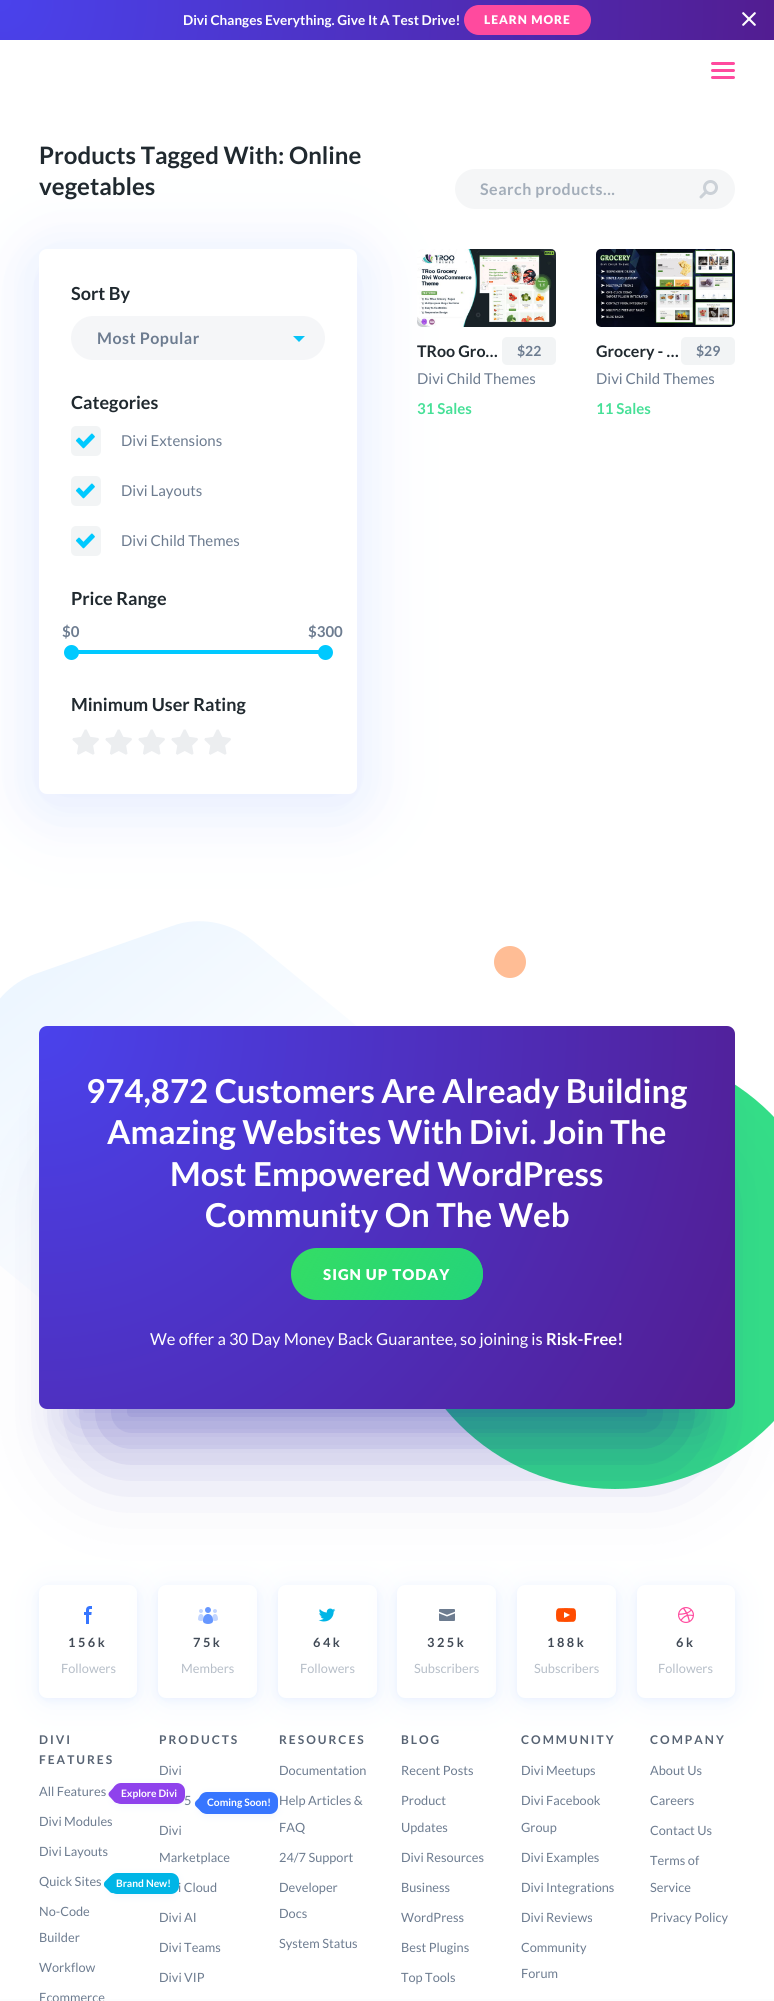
#include <cairo/cairo.h>
#include <math.h>
#include <stddef.h>

static cairo_t *cr;

static void use_color(int r, int g, int b) {
  cairo_set_source_rgb(cr, r / 255.0, g / 255.0, b / 255.0);
}

static void text(double x, double y, const char *s, const char *family, double size, int italic, int bold, int r, int g, int b) {
  cairo_select_font_face(cr, family, italic ? CAIRO_FONT_SLANT_ITALIC : CAIRO_FONT_SLANT_NORMAL,
    bold ? CAIRO_FONT_WEIGHT_BOLD : CAIRO_FONT_WEIGHT_NORMAL);
  cairo_set_font_size(cr, size);
  use_color(r, g, b);
  cairo_move_to(cr, x, y);
  cairo_show_text(cr, s);
}

static void spaced_text(double x, double y, const char *s, double letter, double word) {
  cairo_move_to(cr, x, y);
  while (*s) {
    char ch[5] = {0};
    int n = 0;
    do ch[n++] = *s++; while ((*s & 0xC0) == 0x80);
    cairo_show_text(cr, ch);
    cairo_rel_move_to(cr, letter + word * (*ch == ' '), 0);
  }
}

static void box(double x, double y, double w, double h, int r, int g, int b) {
  use_color(r, g, b);
  cairo_rectangle(cr, x, y, w, h);
  cairo_fill(cr);
}

static void round_rect(double x, double y, double w, double h, double r) {
  cairo_new_sub_path(cr);
  cairo_arc(cr, x + w - r, y + h - r, r, 0, M_PI / 2);
  cairo_arc(cr, x + r, y + h - r, r, M_PI / 2, M_PI);
  cairo_arc(cr, x + r, y + r, r, M_PI, 1.5 * M_PI);
  cairo_arc(cr, x + w - r, y + r, r, 1.5 * M_PI, 2 * M_PI);
  cairo_close_path(cr);
}

static void shadow(double x, double y, double w, double h, double r, double blur, double alpha) {
  cairo_push_group_with_content(cr, CAIRO_CONTENT_ALPHA);
  cairo_set_operator(cr, CAIRO_OPERATOR_SOURCE);
  for (int i = 15; i >= -15 && fmin(w, h) + blur * i / 3 > 0; i -= 2) {
    double e = blur * i / 6;
    cairo_set_source_rgba(cr, 0, 0, 0, alpha * erfc((i - 1) / 8.5) / 2);
    round_rect(x - e, y - e, w + 2 * e, h + 2 * e, fmax(0, fmin(r + e + blur * .6, fmin(w, h) / 2 + e)));
    cairo_fill(cr);
  }
  cairo_pattern_t *soft = cairo_pop_group(cr);
  cairo_mask(cr, soft);
  cairo_pattern_destroy(soft);
}

static void picture(const char *path, double x, double y, double w, double h) {
  cairo_surface_t *image = cairo_image_surface_create_from_png(path);
  cairo_save(cr);
  cairo_set_source_surface(cr, image, x, y);
  cairo_rectangle(cr, x, y, w, h);
  cairo_fill(cr);
  cairo_restore(cr);
  cairo_surface_destroy(image);
}

static void draw(void) {
  cairo_pattern_t *gradient;
  use_color(255, 255, 255);
  cairo_paint(cr);
  gradient = cairo_pattern_create_radial(0, 0, 0, 0, 0, 775);
  cairo_pattern_add_color_stop_rgba(gradient, 0, 0.29, 0.259, 0.925, 1);
  cairo_pattern_add_color_stop_rgba(gradient, 1, 0.322, 0.114, 0.569, 1);
  cairo_set_source(cr, gradient);
  cairo_pattern_destroy(gradient);
  cairo_rectangle(cr, 0, 0, 774, 40);
  cairo_fill(cr);
  use_color(255, 74, 158);
  round_rect(464, 5, 127, 30, 15);
  cairo_fill(cr);
  use_color(255, 255, 255);
  cairo_new_path(cr);
  cairo_move_to(cr, 755.5, 12.5);
  cairo_curve_to(cr, 756, 13, 756, 13.5, 755.5, 14);
  cairo_line_to(cr, 744, 25.5);
  cairo_curve_to(cr, 743.5, 26, 743, 26, 742.5, 25.5);
  cairo_curve_to(cr, 742, 25, 742, 24.5, 742.5, 24);
  cairo_line_to(cr, 754, 12.5);
  cairo_curve_to(cr, 754.5, 12, 755, 12, 755.5, 12.5);
  cairo_close_path(cr);
  cairo_fill(cr);
  cairo_new_path(cr);
  cairo_move_to(cr, 742.5, 12.5);
  cairo_curve_to(cr, 743, 12, 743.5, 12, 744, 12.5);
  cairo_line_to(cr, 755.5, 24);
  cairo_curve_to(cr, 756, 24.5, 756, 25, 755.5, 25.5);
  cairo_curve_to(cr, 755, 26, 754.5, 26, 754, 25.5);
  cairo_line_to(cr, 742.5, 14);
  cairo_curve_to(cr, 742, 13.5, 742, 13, 742.5, 12.5);
  cairo_close_path(cr);
  cairo_fill(cr);
  use_color(255, 74, 158);
  round_rect(711, 62, 24, 3, 1.5);
  cairo_fill(cr);
  round_rect(711, 69, 24, 3, 1.5);
  cairo_fill(cr);
  round_rect(711, 76, 24, 3, 1.5);
  cairo_fill(cr);
  use_color(103, 151, 255);
  shadow(39, 261, 318, 545, 8, 45, 0.11);
  shadow(39, 257, 318, 545, 8, 30, 0.11);
  use_color(255, 255, 255);
  round_rect(39, 249, 318, 545, 8);
  cairo_fill(cr);
  use_color(0, 201, 255);
  cairo_new_path(cr);
  cairo_move_to(cr, 293, 336);
  cairo_line_to(cr, 305, 336);
  cairo_line_to(cr, 299, 342);
  cairo_close_path(cr);
  cairo_fill(cr);
  cairo_set_source_rgba(cr, 0.427, 0.486, 0.565, 0.07);
  round_rect(71, 316, 254, 44, 22);
  cairo_fill(cr);
  use_color(242, 244, 245);
  round_rect(71, 426, 30, 30, 5);
  cairo_fill(cr);
  picture("img_01.png", 76, 433, 19, 16);
  round_rect(71, 476, 30, 30, 5);
  cairo_fill(cr);
  picture("img_01.png", 76, 483, 19, 16);
  round_rect(71, 526, 30, 30, 5);
  cairo_fill(cr);
  picture("img_01.png", 76, 533, 19, 16);
  box(71, 650, 254, 4, 0, 201, 255);
  cairo_arc(cr, 71.5, 652.5, 7.5, 0, 2 * M_PI);
  cairo_fill(cr);
  cairo_arc(cr, 325.5, 652.5, 7.5, 0, 2 * M_PI);
  cairo_fill(cr);
  picture("img_02.png", 72, 729, 27, 26);
  picture("img_02.png", 105, 729, 27, 26);
  picture("img_02.png", 138, 729, 27, 26);
  picture("img_02.png", 171, 729, 27, 26);
  picture("img_02.png", 204, 729, 27, 26);
  use_color(245, 246, 247);
  round_rect(455, 169, 280, 40, 20);
  cairo_fill(cr);
  picture("img_03.png", 699, 180, 19, 19);
  picture("img_04.png", 417, 249, 139, 78);
  use_color(242, 244, 245);
  round_rect(502, 337, 54, 28, 5);
  cairo_fill(cr);
  picture("img_05.png", 596, 249, 139, 78);
  round_rect(681, 337, 54, 28, 5);
  cairo_fill(cr);
  gradient = cairo_pattern_create_linear(8, 886, 268, 1231);
  cairo_pattern_add_color_stop_rgba(gradient, 0.05, 0.914, 0.957, 1, 1);
  cairo_pattern_add_color_stop_rgba(gradient, 0.95, 1, 1, 1, 1);
  cairo_set_source(cr, gradient);
  cairo_pattern_destroy(gradient);
  cairo_new_path(cr);
  cairo_move_to(cr, -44, 1181);
  cairo_line_to(cr, -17, 1029);
  cairo_curve_to(cr, -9, 1004, 10, 983, 35, 974);
  cairo_line_to(cr, 172, 926);
  cairo_curve_to(cr, 199, 916, 230, 922, 252, 940);
  cairo_line_to(cr, 364, 1032);
  cairo_curve_to(cr, 387, 1051, 398, 1081, 393, 1111);
  cairo_line_to(cr, 368, 1251);
  cairo_curve_to(cr, 362, 1279, 342, 1302, 315, 1312);
  cairo_line_to(cr, 178, 1360);
  cairo_curve_to(cr, 151, 1370, 120, 1365, 98, 1346);
  cairo_line_to(cr, -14, 1254);
  cairo_curve_to(cr, -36, 1236, -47, 1209, -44, 1181);
  cairo_close_path(cr);
  cairo_fill(cr);
  use_color(52, 221, 135);
  cairo_arc(cr, 615, 1269, 220, 0, 2 * M_PI);
  cairo_fill(cr);
  use_color(103, 151, 255);
  shadow(39, 1589, 98, 113, 8, 16, 0.09);
  shadow(39, 1587, 98, 113, 8, 4, 0.09);
  use_color(255, 255, 255);
  round_rect(39, 1585, 98, 113, 8);
  cairo_fill(cr);
  use_color(103, 151, 255);
  shadow(158, 1589, 99, 113, 8, 16, 0.09);
  shadow(158, 1587, 99, 113, 8, 4, 0.09);
  use_color(255, 255, 255);
  round_rect(158, 1585, 99, 113, 8);
  cairo_fill(cr);
  use_color(103, 151, 255);
  shadow(278, 1589, 99, 113, 8, 16, 0.09);
  shadow(278, 1587, 99, 113, 8, 4, 0.09);
  use_color(255, 255, 255);
  round_rect(278, 1585, 99, 113, 8);
  cairo_fill(cr);
  use_color(103, 151, 255);
  shadow(397, 1589, 99, 113, 8, 16, 0.09);
  shadow(397, 1587, 99, 113, 8, 4, 0.09);
  use_color(255, 255, 255);
  round_rect(397, 1585, 99, 113, 8);
  cairo_fill(cr);
  use_color(103, 151, 255);
  shadow(517, 1589, 99, 113, 8, 16, 0.09);
  shadow(517, 1587, 99, 113, 8, 4, 0.09);
  use_color(255, 255, 255);
  round_rect(517, 1585, 99, 113, 8);
  cairo_fill(cr);
  use_color(103, 151, 255);
  shadow(637, 1589, 98, 113, 8, 16, 0.09);
  shadow(637, 1587, 98, 113, 8, 4, 0.09);
  use_color(255, 255, 255);
  round_rect(637, 1585, 98, 113, 8);
  cairo_fill(cr);
  use_color(23, 16, 159);
  shadow(103, 1186, 568, 255, 0, 48, 0.4);
  shadow(71, 1106, 632, 319, 0, 24, 0.2);
  gradient = cairo_pattern_create_radial(39, 1026, 0, 39, 1026, 794);
  cairo_pattern_add_color_stop_rgba(gradient, 0, 0.29, 0.259, 0.925, 1);
  cairo_pattern_add_color_stop_rgba(gradient, 1, 0.322, 0.114, 0.569, 1);
  cairo_set_source(cr, gradient);
  cairo_pattern_destroy(gradient);
  round_rect(39, 1026, 696, 383, 8);
  cairo_fill(cr);
  use_color(255, 189, 149);
  cairo_arc(cr, 510, 962, 16, 0, 2 * M_PI);
  cairo_fill(cr);
  use_color(52, 221, 101);
  round_rect(291, 1248, 192, 52, 26);
  cairo_fill(cr);
  gradient = cairo_pattern_create_linear(304, 1226, 470, 1322);
  cairo_pattern_add_color_stop_rgba(gradient, 0, 0.141, 0.831, 0.478, 0);
  cairo_pattern_add_color_stop_rgba(gradient, 1, 0.141, 0.831, 0.478, 1);
  cairo_set_source(cr, gradient);
  cairo_pattern_destroy(gradient);
  round_rect(291, 1248, 192, 52, 26);
  cairo_fill(cr);
  gradient = cairo_pattern_create_linear(387, 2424, 387, 1573);
  cairo_pattern_add_color_stop_rgba(gradient, 0, 0.98, 0.984, 0.992, 1);
  cairo_pattern_add_color_stop_rgba(gradient, 1, 1, 1, 1, 1);
  cairo_set_source(cr, gradient);
  cairo_pattern_destroy(gradient);
  cairo_rectangle(cr, 0, 1999, 774, 2);
  cairo_fill(cr);
  picture("img_06.png", 84, 1606, 8, 18);
  picture("img_07.png", 198, 1607, 20, 17);
  picture("img_08.png", 318, 1608, 18, 14);
  picture("img_09.png", 439, 1609, 16, 12);
  picture("img_10.png", 556, 1608, 20, 14);
  picture("img_11.png", 678, 1607, 16, 16);
  use_color(103, 151, 255);
  shadow(113, 1785, 72, 21, 8, 4, 0.09);
  shadow(109, 1875, 70, 21, 8, 4, 0.09);
  shadow(199, 1794, 79, 22, 8, 4, 0.09);
  use_color(55, 118, 255);
  round_rect(199, 1792, 79, 22, 8);
  cairo_fill(cr);
  cairo_new_path(cr);
  cairo_move_to(cr, 206.5, 1796);
  cairo_line_to(cr, 211.5, 1801);
  cairo_curve_to(cr, 213, 1802.5, 213, 1805, 211.5, 1806.5);
  cairo_line_to(cr, 206.5, 1811.5);
  cairo_curve_to(cr, 205, 1813, 202.5, 1813, 201, 1811.5);
  cairo_line_to(cr, 196, 1806.5);
  cairo_curve_to(cr, 194.5, 1805, 194.5, 1802.5, 196, 1801);
  cairo_line_to(cr, 201, 1796);
  cairo_curve_to(cr, 202.5, 1794.5, 205, 1794.5, 206.5, 1796);
  cairo_close_path(cr);
  cairo_fill(cr);
  text(183, 25, "Divi Changes Everything. Give It A Test Drive!", "Lato", 13.6, 0, 1, 255, 255, 255);
  cairo_select_font_face(cr, "Lato Black", CAIRO_FONT_SLANT_NORMAL, CAIRO_FONT_WEIGHT_NORMAL);
  cairo_set_font_size(cr, 12);
  spaced_text(484, 24, "LEARN MORE", 1, 0);
  text(39, 164, "Products Tagged With: Online", "Lato", 24, 0, 1, 32, 41, 47);
  text(39, 195, "vegetables", "Lato", 24, 0, 1, 32, 41, 47);
  text(71, 300, "Sort By", "Lato", 18, 0, 1, 32, 41, 47);
  cairo_set_font_size(cr, 16);
  use_color(109, 124, 144);
  spaced_text(97, 344, "Most Popular", 0.5, 0);
  text(71, 409, "Categories", "Lato", 18, 0, 1, 32, 41, 47);
  text(121, 446, "Divi Extensions", "Lato", 15, 0, 0, 109, 124, 144);
  text(121, 496, "Divi Layouts", "Lato", 15, 0, 0, 109, 124, 144);
  text(121, 546, "Divi Child Themes", "Lato", 15, 0, 0, 109, 124, 144);
  text(71, 605, "Price Range", "Lato", 18, 0, 1, 32, 41, 47);
  text(62, 637, "$0", "Lato", 15, 0, 1, 109, 124, 144);
  text(308, 637, "$300", "Lato", 15, 0, 1, 109, 124, 144);
  text(71, 711, "Minimum User Rating", "Lato", 18, 0, 1, 32, 41, 47);
  cairo_set_font_size(cr, 16);
  use_color(163, 173, 185);
  spaced_text(480, 195, "Search products...", 0.5, 0);
  text(417, 357, "TRoo Gro…", "Lato", 16, 0, 1, 32, 41, 47);
  text(517, 356, "$22", "Lato", 14, 0, 1, 109, 124, 144);
  text(417, 384, "Divi Child Themes", "Lato", 15, 0, 0, 109, 124, 144);
  text(417, 414, "31 Sales", "Lato", 15, 0, 1, 70, 224, 151);
  text(596, 357, "Grocery - …", "Lato", 16, 0, 1, 32, 41, 47);
  text(696, 356, "$29", "Lato", 14, 0, 1, 109, 124, 144);
  text(596, 384, "Divi Child Themes", "Lato", 15, 0, 0, 109, 124, 144);
  text(596, 414, "11 Sales", "Lato", 15, 0, 1, 70, 224, 151);
  text(86, 1103, "974,872 Customers Are Already Building", "Lato", 33, 0, 1, 255, 255, 255);
  text(107, 1144, "Amazing Websites With Divi. Join The", "Lato", 33, 0, 1, 255, 255, 255);
  text(170, 1186, "Most Empowered WordPress", "Lato", 33, 0, 1, 255, 255, 255);
  text(205, 1227, "Community On The Web", "Lato", 33, 0, 1, 255, 255, 255);
  cairo_select_font_face(cr, "Lato Black", CAIRO_FONT_SLANT_NORMAL, CAIRO_FONT_WEIGHT_NORMAL);
  cairo_set_font_size(cr, 15);
  spaced_text(323, 1280, "SIGN UP TODAY", 1, 0);
  text(150, 1345, "We offer a 30 Day Money Back Guarantee, so joining is", "Lato", 16.5, 0, 0, 255, 255, 255);
  text(546, 1345, "Risk-Free!", "Lato", 16.5, 0, 1, 255, 255, 255);
  cairo_set_font_size(cr, 12.75);
  use_color(65, 74, 86);
  spaced_text(68, 1647, "156k", 2.5, 0);
  text(61, 1673, "Followers", "Lato", 12.75, 0, 0, 182, 190, 200);
  cairo_select_font_face(cr, "Lato", CAIRO_FONT_SLANT_NORMAL, CAIRO_FONT_WEIGHT_BOLD);
  use_color(65, 74, 86);
  spaced_text(193, 1647, "75k", 2.5, 0);
  text(181, 1673, "Members", "Lato", 12.75, 0, 0, 182, 190, 200);
  cairo_select_font_face(cr, "Lato", CAIRO_FONT_SLANT_NORMAL, CAIRO_FONT_WEIGHT_BOLD);
  use_color(65, 74, 86);
  spaced_text(313, 1647, "64k", 2.5, 0);
  text(300, 1673, "Followers", "Lato", 12.75, 0, 0, 182, 190, 200);
  cairo_select_font_face(cr, "Lato", CAIRO_FONT_SLANT_NORMAL, CAIRO_FONT_WEIGHT_BOLD);
  use_color(65, 74, 86);
  spaced_text(427, 1647, "325k", 2.5, 0);
  text(414, 1673, "Subscribers", "Lato", 12.75, 0, 0, 182, 190, 200);
  cairo_select_font_face(cr, "Lato", CAIRO_FONT_SLANT_NORMAL, CAIRO_FONT_WEIGHT_BOLD);
  use_color(65, 74, 86);
  spaced_text(547, 1647, "188k", 2.5, 0);
  text(534, 1673, "Subscribers", "Lato", 12.75, 0, 0, 182, 190, 200);
  cairo_select_font_face(cr, "Lato", CAIRO_FONT_SLANT_NORMAL, CAIRO_FONT_WEIGHT_BOLD);
  use_color(65, 74, 86);
  spaced_text(676, 1647, "6k", 2.5, 0);
  text(658, 1673, "Followers", "Lato", 12.75, 0, 0, 182, 190, 200);
  cairo_select_font_face(cr, "Lato", CAIRO_FONT_SLANT_NORMAL, CAIRO_FONT_WEIGHT_BOLD);
  cairo_set_font_size(cr, 12);
  use_color(87, 99, 115);
  spaced_text(39, 1744, "DIVI", 2, 0);
  spaced_text(39, 1764, "FEATURES", 2, 0);
  text(39, 1796, "All Features", "Lato", 12.75, 0, 0, 109, 124, 144);
  text(39, 1826, "Divi Modules", "Lato", 12.75, 0, 0, 109, 124, 144);
  text(39, 1856, "Divi Layouts", "Lato", 12.75, 0, 0, 109, 124, 144);
  text(39, 1886, "Quick Sites", "Lato", 12.75, 0, 0, 109, 124, 144);
  text(39, 1916, "No-Code", "Lato", 12.75, 0, 0, 109, 124, 144);
  text(39, 1942, "Builder", "Lato", 12.75, 0, 0, 109, 124, 144);
  text(39, 1972, "Workflow", "Lato", 12.75, 0, 0, 109, 124, 144);
  text(39, 2002, "Ecommerce", "Lato", 12.75, 0, 0, 109, 124, 144);
  cairo_select_font_face(cr, "Lato", CAIRO_FONT_SLANT_NORMAL, CAIRO_FONT_WEIGHT_BOLD);
  cairo_set_font_size(cr, 12);
  use_color(87, 99, 115);
  spaced_text(159, 1744, "PRODUCTS", 2, 0);
  text(159, 1775, "Divi", "Lato", 12.75, 0, 0, 109, 124, 144);
  text(184, 1805, "5", "Lato", 12.75, 0, 0, 109, 124, 144);
  use_color(143, 66, 236);
  round_rect(113, 1783, 72, 21, 8);
  cairo_fill(cr);
  cairo_new_path(cr);
  cairo_move_to(cr, 120.5, 1786.5);
  cairo_line_to(cr, 125.5, 1791.5);
  cairo_curve_to(cr, 127, 1793, 127, 1795.5, 125.5, 1797);
  cairo_line_to(cr, 120.5, 1802);
  cairo_curve_to(cr, 119, 1803.5, 116.5, 1803.5, 114.5, 1802);
  cairo_line_to(cr, 110, 1797);
  cairo_curve_to(cr, 108, 1795.5, 108, 1793, 110, 1791.5);
  cairo_line_to(cr, 114.5, 1786.5);
  cairo_curve_to(cr, 116.5, 1785, 119, 1785, 120.5, 1786.5);
  cairo_close_path(cr);
  cairo_fill(cr);
  text(121, 1797, "Explore Divi", "Lato", 10.25, 0, 1, 255, 255, 255);
  text(207, 1806, "Coming Soon!", "Lato", 10.25, 0, 1, 255, 255, 255);
  text(159, 1835, "Divi", "Lato", 12.75, 0, 0, 109, 124, 144);
  text(159, 1862, "Marketplace", "Lato", 12.75, 0, 0, 109, 124, 144);
  text(178, 1892, "i Cloud", "Lato", 12.75, 0, 0, 109, 124, 144);
  use_color(0, 181, 230);
  round_rect(109, 1873, 70, 21, 8);
  cairo_fill(cr);
  cairo_new_path(cr);
  cairo_move_to(cr, 115.5, 1876.5);
  cairo_line_to(cr, 120.5, 1881.5);
  cairo_curve_to(cr, 122, 1883, 122, 1885.5, 120.5, 1887);
  cairo_line_to(cr, 115.5, 1892);
  cairo_curve_to(cr, 114, 1893.5, 111.5, 1893.5, 110, 1892);
  cairo_line_to(cr, 105, 1887);
  cairo_curve_to(cr, 103.5, 1885.5, 103.5, 1883, 105, 1881.5);
  cairo_line_to(cr, 110, 1876.5);
  cairo_curve_to(cr, 111.5, 1875, 114, 1875, 115.5, 1876.5);
  cairo_close_path(cr);
  cairo_fill(cr);
  text(116, 1887, "Brand New!", "Lato", 10.25, 0, 1, 255, 255, 255);
  text(159, 1922, "Divi AI", "Lato", 12.75, 0, 0, 109, 124, 144);
  text(159, 1952, "Divi Teams", "Lato", 12.75, 0, 0, 109, 124, 144);
  text(159, 1982, "Divi VIP", "Lato", 12.75, 0, 0, 109, 124, 144);
  cairo_select_font_face(cr, "Lato", CAIRO_FONT_SLANT_NORMAL, CAIRO_FONT_WEIGHT_BOLD);
  cairo_set_font_size(cr, 12);
  use_color(87, 99, 115);
  spaced_text(279, 1744, "RESOURCES", 2, 0);
  text(279, 1775, "Documentation", "Lato", 12.75, 0, 0, 109, 124, 144);
  text(279, 1805, "Help Articles &", "Lato", 12.75, 0, 0, 109, 124, 144);
  text(279, 1832, "FAQ", "Lato", 12.75, 0, 0, 109, 124, 144);
  text(279, 1862, "24/7 Support", "Lato", 12.75, 0, 0, 109, 124, 144);
  text(279, 1892, "Developer", "Lato", 12.75, 0, 0, 109, 124, 144);
  text(279, 1918, "Docs", "Lato", 12.75, 0, 0, 109, 124, 144);
  text(279, 1948, "System Status", "Lato", 12.75, 0, 0, 109, 124, 144);
  cairo_select_font_face(cr, "Lato", CAIRO_FONT_SLANT_NORMAL, CAIRO_FONT_WEIGHT_BOLD);
  cairo_set_font_size(cr, 12);
  use_color(87, 99, 115);
  spaced_text(401, 1744, "BLOG", 2, 0);
  text(401, 1775, "Recent Posts", "Lato", 12.75, 0, 0, 109, 124, 144);
  text(401, 1805, "Product", "Lato", 12.75, 0, 0, 109, 124, 144);
  text(401, 1832, "Updates", "Lato", 12.75, 0, 0, 109, 124, 144);
  text(401, 1862, "Divi Resources", "Lato", 12.75, 0, 0, 109, 124, 144);
  text(401, 1892, "Business", "Lato", 12.75, 0, 0, 109, 124, 144);
  text(401, 1922, "WordPress", "Lato", 12.75, 0, 0, 109, 124, 144);
  text(401, 1952, "Best Plugins", "Lato", 12.75, 0, 0, 109, 124, 144);
  text(401, 1982, "Top Tools", "Lato", 12.75, 0, 0, 109, 124, 144);
  cairo_select_font_face(cr, "Lato", CAIRO_FONT_SLANT_NORMAL, CAIRO_FONT_WEIGHT_BOLD);
  cairo_set_font_size(cr, 12);
  use_color(87, 99, 115);
  spaced_text(521, 1744, "COMMUNITY", 2, 0);
  text(521, 1775, "Divi Meetups", "Lato", 12.75, 0, 0, 109, 124, 144);
  text(521, 1805, "Divi Facebook", "Lato", 12.75, 0, 0, 109, 124, 144);
  text(521, 1832, "Group", "Lato", 12.75, 0, 0, 109, 124, 144);
  text(521, 1862, "Divi Examples", "Lato", 12.75, 0, 0, 109, 124, 144);
  text(521, 1892, "Divi Integrations", "Lato", 12.75, 0, 0, 109, 124, 144);
  text(521, 1922, "Divi Reviews", "Lato", 12.75, 0, 0, 109, 124, 144);
  text(521, 1952, "Community", "Lato", 12.75, 0, 0, 109, 124, 144);
  text(521, 1978, "Forum", "Lato", 12.75, 0, 0, 109, 124, 144);
  cairo_select_font_face(cr, "Lato", CAIRO_FONT_SLANT_NORMAL, CAIRO_FONT_WEIGHT_BOLD);
  cairo_set_font_size(cr, 12);
  use_color(87, 99, 115);
  spaced_text(650, 1744, "COMPANY", 2, 0);
  text(650, 1775, "About Us", "Lato", 12.75, 0, 0, 109, 124, 144);
  text(650, 1805, "Careers", "Lato", 12.75, 0, 0, 109, 124, 144);
  text(650, 1835, "Contact Us", "Lato", 12.75, 0, 0, 109, 124, 144);
  text(650, 1865, "Terms of", "Lato", 12.75, 0, 0, 109, 124, 144);
  text(650, 1892, "Service", "Lato", 12.75, 0, 0, 109, 124, 144);
  text(650, 1922, "Privacy Policy", "Lato", 12.75, 0, 0, 109, 124, 144);
}

int main(void) {
  cairo_surface_t *surface = cairo_image_surface_create(CAIRO_FORMAT_RGB24, 774, 2001);
  cr = cairo_create(surface);
  cairo_font_options_t *options = cairo_font_options_create();
  cairo_font_options_set_hint_metrics(options, CAIRO_HINT_METRICS_OFF);
  cairo_font_options_set_hint_style(options, CAIRO_HINT_STYLE_NONE);
  cairo_set_font_options(cr, options);
  cairo_set_miter_limit(cr, 4);
  draw();
  cairo_surface_write_to_png(surface, "out.png");
  cairo_font_options_destroy(options);
  cairo_destroy(cr);
  cairo_surface_destroy(surface);
  return 0;
}
